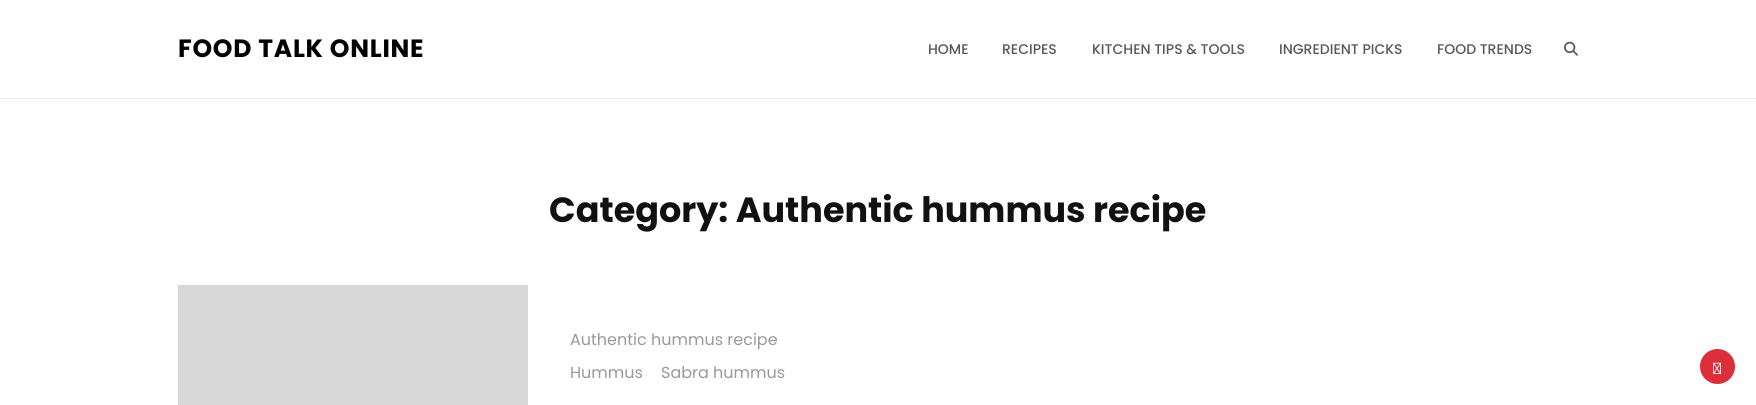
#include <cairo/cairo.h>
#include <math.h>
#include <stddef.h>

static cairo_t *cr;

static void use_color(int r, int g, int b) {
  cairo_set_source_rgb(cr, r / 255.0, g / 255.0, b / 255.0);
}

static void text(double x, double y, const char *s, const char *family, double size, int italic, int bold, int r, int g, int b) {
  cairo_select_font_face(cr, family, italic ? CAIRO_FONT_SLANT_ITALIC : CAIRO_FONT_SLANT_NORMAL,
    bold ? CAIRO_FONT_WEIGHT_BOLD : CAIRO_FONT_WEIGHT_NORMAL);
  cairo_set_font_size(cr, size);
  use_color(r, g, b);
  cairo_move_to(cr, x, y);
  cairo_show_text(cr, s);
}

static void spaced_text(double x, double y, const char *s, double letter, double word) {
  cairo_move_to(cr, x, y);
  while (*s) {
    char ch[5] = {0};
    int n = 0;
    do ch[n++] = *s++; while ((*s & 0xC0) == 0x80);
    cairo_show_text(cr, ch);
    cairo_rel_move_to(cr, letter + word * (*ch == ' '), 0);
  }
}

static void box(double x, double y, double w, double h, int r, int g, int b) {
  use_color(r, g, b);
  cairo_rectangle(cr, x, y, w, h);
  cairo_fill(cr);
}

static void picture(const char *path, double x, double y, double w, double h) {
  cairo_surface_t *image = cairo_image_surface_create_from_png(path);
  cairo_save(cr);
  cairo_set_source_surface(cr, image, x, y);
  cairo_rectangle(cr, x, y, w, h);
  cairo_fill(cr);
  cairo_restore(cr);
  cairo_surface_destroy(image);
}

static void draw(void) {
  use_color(255, 255, 255);
  cairo_paint(cr);
  box(0, 98, 1756, 1, 235, 235, 235);
  picture("img_01.png", 1564, 41, 14, 15);
  box(178, 285, 350, 120, 215, 215, 215);
  use_color(219, 47, 57);
  cairo_arc(cr, 1717.5, 366.5, 17.5, 0, 2 * M_PI);
  cairo_fill(cr);
  picture("img_02.png", 1713, 362, 8, 12);
  cairo_select_font_face(cr, "Poppins", CAIRO_FONT_SLANT_NORMAL, CAIRO_FONT_WEIGHT_BOLD);
  cairo_set_font_size(cr, 25);
  use_color(0, 0, 0);
  spaced_text(178, 57, "FOOD TALK ONLINE", 0.75, 0);
  text(928, 54, "HOME", "Poppins Medium", 14, 0, 0, 89, 89, 89);
  text(1002, 54, "RECIPES", "Poppins Medium", 14, 0, 0, 89, 89, 89);
  text(1092, 54, "KITCHEN TIPS & TOOLS", "Poppins Medium", 14, 0, 0, 89, 89, 89);
  text(1279, 54, "INGREDIENT PICKS", "Poppins Medium", 14, 0, 0, 89, 89, 89);
  text(1437, 54, "FOOD TRENDS", "Poppins Medium", 14, 0, 0, 89, 89, 89);
  text(549, 222, "Category: Authentic hummus recipe", "Poppins", 35, 0, 1, 17, 17, 17);
  text(570, 345, "Authentic hummus recipe", "Poppins", 16, 0, 0, 153, 153, 153);
  text(570, 378, "Hummus", "Poppins", 16, 0, 0, 153, 153, 153);
  text(661, 378, "Sabra hummus", "Poppins", 16, 0, 0, 153, 153, 153);
}

int main(void) {
  cairo_surface_t *surface = cairo_image_surface_create(CAIRO_FORMAT_RGB24, 1756, 405);
  cr = cairo_create(surface);
  cairo_font_options_t *options = cairo_font_options_create();
  cairo_font_options_set_hint_metrics(options, CAIRO_HINT_METRICS_OFF);
  cairo_font_options_set_hint_style(options, CAIRO_HINT_STYLE_NONE);
  cairo_set_font_options(cr, options);
  cairo_set_miter_limit(cr, 4);
  draw();
  cairo_surface_write_to_png(surface, "out.png");
  cairo_font_options_destroy(options);
  cairo_destroy(cr);
  cairo_surface_destroy(surface);
  return 0;
}
